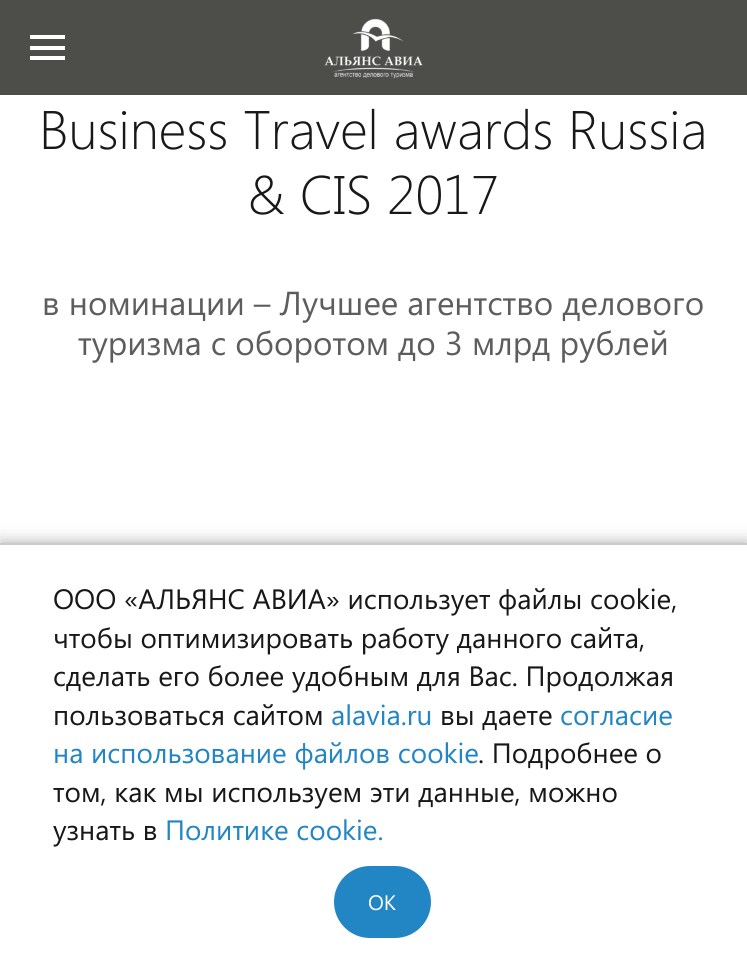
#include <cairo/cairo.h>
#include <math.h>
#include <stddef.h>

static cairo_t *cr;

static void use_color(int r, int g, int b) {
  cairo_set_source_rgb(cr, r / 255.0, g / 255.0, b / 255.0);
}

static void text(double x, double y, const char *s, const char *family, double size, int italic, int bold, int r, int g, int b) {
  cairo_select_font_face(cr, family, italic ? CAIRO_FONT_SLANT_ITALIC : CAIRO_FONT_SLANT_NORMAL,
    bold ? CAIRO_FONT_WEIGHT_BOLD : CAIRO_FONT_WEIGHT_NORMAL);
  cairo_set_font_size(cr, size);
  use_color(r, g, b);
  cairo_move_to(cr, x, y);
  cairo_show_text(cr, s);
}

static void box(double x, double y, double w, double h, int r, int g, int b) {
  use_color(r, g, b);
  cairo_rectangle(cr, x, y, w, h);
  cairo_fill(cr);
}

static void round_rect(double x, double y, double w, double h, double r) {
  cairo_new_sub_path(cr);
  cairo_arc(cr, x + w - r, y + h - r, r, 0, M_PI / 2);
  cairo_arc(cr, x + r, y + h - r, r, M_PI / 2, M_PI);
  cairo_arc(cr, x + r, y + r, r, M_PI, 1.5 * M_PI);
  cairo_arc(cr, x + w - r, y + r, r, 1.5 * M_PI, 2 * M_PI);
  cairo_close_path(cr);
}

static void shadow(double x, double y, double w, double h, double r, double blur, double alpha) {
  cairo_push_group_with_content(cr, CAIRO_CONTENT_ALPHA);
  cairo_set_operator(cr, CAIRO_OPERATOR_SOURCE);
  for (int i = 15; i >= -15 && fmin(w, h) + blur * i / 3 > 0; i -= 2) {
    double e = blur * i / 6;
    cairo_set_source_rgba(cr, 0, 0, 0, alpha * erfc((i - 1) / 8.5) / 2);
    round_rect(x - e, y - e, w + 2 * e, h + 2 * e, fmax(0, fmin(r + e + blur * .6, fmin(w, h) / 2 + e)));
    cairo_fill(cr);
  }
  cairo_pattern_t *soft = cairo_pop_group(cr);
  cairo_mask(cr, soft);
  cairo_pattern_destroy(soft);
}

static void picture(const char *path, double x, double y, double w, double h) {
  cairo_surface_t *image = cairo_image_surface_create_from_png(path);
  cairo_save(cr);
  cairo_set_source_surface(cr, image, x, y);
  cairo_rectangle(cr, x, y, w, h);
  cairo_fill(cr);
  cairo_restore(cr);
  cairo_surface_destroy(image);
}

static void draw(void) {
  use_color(255, 255, 255);
  cairo_paint(cr);
  box(0, 0, 747, 95, 77, 77, 74);
  box(30, 35, 35, 4, 255, 255, 255);
  box(30, 46, 35, 4, 255, 255, 255);
  box(30, 56, 35, 4, 255, 255, 255);
  picture("img_01.png", 324, 18, 99, 61);
  use_color(136, 136, 136);
  shadow(0, 546, 747, 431, 0, 9, 1);
  box(0, 545, 747, 427, 255, 255, 255);
  box(0, 543, 747, 2, 204, 204, 204);
  use_color(34, 133, 196);
  round_rect(334, 866, 97, 72, 36);
  cairo_fill(cr);
  text(39, 149, "Business Travel awards Russia", "Segoe UI Light", 54.25, 0, 0, 24, 24, 24);
  text(247, 214, "& CIS 2017", "Segoe UI Light", 54.25, 0, 0, 24, 24, 24);
  text(42, 315, "в номинации – Лучшее агентство делового", "Segoe UI", 33.25, 0, 0, 93, 93, 93);
  text(78, 355, "туризма с оборотом до 3 млрд рублей", "Segoe UI", 33.25, 0, 0, 93, 93, 93);
  text(53, 609, "ООО «АЛЬЯНС АВИА» использует файлы cookie,", "Segoe UI", 28, 0, 0, 24, 24, 24);
  text(53, 648, "чтобы оптимизировать работу данного сайта,", "Segoe UI", 28, 0, 0, 24, 24, 24);
  text(53, 686, "сделать его более удобным для Вас. Продолжая", "Segoe UI", 28, 0, 0, 24, 24, 24);
  text(53, 725, "пользоваться сайтом", "Segoe UI", 28, 0, 0, 24, 24, 24);
  text(331, 725, "alavia.ru", "Segoe UI", 28, 0, 0, 34, 133, 196);
  text(440, 725, "вы даете", "Segoe UI", 28, 0, 0, 24, 24, 24);
  text(560, 725, "согласие", "Segoe UI", 28, 0, 0, 34, 133, 196);
  text(53, 763, "на использование файлов cookie", "Segoe UI", 28, 0, 0, 34, 133, 196);
  text(478, 763, ". Подробнее о", "Segoe UI", 28, 0, 0, 24, 24, 24);
  text(53, 802, "том, как мы используем эти данные, можно", "Segoe UI", 28, 0, 0, 24, 24, 24);
  text(53, 840, "узнать в", "Segoe UI", 28, 0, 0, 24, 24, 24);
  text(165, 840, "Политике cookie.", "Segoe UI", 28, 0, 0, 34, 133, 196);
  text(368, 910, "OK", "Segoe UI", 21, 0, 0, 255, 255, 255);
}

int main(void) {
  cairo_surface_t *surface = cairo_image_surface_create(CAIRO_FORMAT_RGB24, 747, 972);
  cr = cairo_create(surface);
  cairo_font_options_t *options = cairo_font_options_create();
  cairo_font_options_set_hint_metrics(options, CAIRO_HINT_METRICS_OFF);
  cairo_font_options_set_hint_style(options, CAIRO_HINT_STYLE_NONE);
  cairo_set_font_options(cr, options);
  cairo_set_miter_limit(cr, 4);
  draw();
  cairo_surface_write_to_png(surface, "out.png");
  cairo_font_options_destroy(options);
  cairo_destroy(cr);
  cairo_surface_destroy(surface);
  return 0;
}
